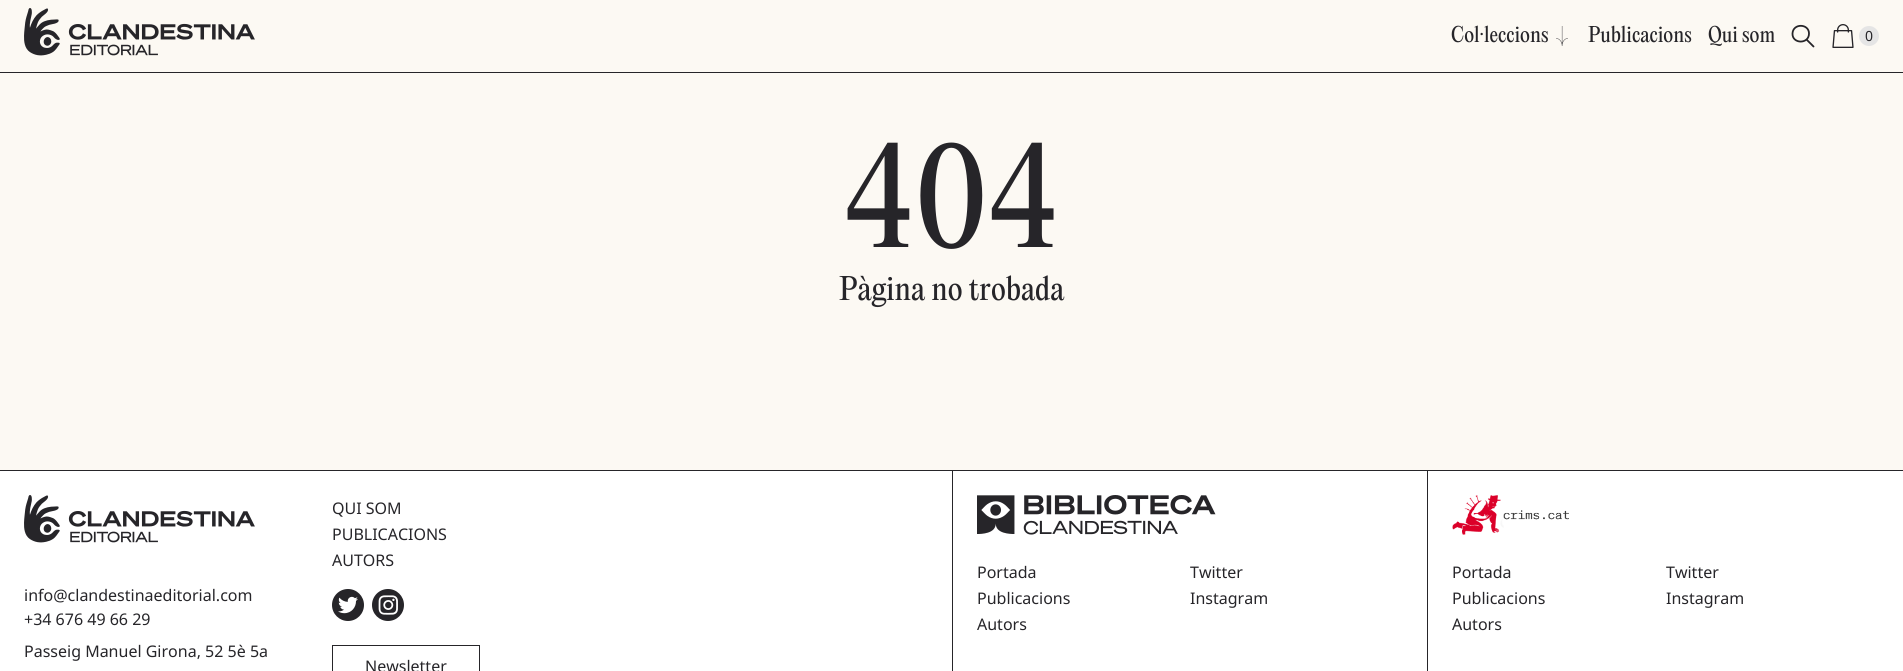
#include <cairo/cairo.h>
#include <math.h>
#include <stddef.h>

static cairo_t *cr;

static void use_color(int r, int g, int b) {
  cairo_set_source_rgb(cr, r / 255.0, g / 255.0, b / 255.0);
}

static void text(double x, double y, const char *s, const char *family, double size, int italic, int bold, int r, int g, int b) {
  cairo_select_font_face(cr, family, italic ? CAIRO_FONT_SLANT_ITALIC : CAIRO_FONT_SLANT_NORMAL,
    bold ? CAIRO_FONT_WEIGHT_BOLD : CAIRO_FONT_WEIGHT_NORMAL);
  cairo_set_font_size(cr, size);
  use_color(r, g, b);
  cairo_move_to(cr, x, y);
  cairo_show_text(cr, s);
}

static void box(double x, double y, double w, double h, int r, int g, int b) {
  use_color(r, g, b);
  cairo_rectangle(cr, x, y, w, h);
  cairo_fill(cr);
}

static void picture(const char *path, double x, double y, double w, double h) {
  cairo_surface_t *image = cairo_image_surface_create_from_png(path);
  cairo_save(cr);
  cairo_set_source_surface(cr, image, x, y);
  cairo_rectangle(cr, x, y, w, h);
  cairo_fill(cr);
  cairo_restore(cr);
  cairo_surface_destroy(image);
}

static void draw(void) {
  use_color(252, 249, 243);
  cairo_paint(cr);
  box(0, 72, 1903, 1, 38, 37, 41);
  picture("img_01.png", 24, 8, 231, 48);
  picture("img_02.png", 1556, 26, 12, 20);
  cairo_new_path(cr);
  cairo_move_to(cr, 1813.5, 46.5);
  cairo_line_to(cr, 1806.5, 39.5);
  cairo_close_path(cr);
  cairo_move_to(cr, 1809, 33.5);
  cairo_curve_to(cr, 1809, 44.5, 1792, 44, 1792.5, 33.5);
  cairo_curve_to(cr, 1793, 23, 1809, 23.5, 1809, 33.5);
  cairo_close_path(cr);
  cairo_set_line_width(cr, 1.8);
  cairo_set_line_cap(cr, CAIRO_LINE_CAP_ROUND);
  cairo_set_line_join(cr, CAIRO_LINE_JOIN_ROUND);
  cairo_stroke(cr);
  picture("img_03.png", 1832, 24, 22, 24);
  use_color(229, 229, 229);
  cairo_arc(cr, 1869, 36, 10, 0, 2 * M_PI);
  cairo_fill(cr);
  box(0, 471, 1903, 200, 255, 255, 255);
  box(0, 470, 1903, 1, 38, 37, 41);
  picture("img_04.png", 24, 495, 231, 48);
  cairo_arc(cr, 348, 605, 16, 0, 2 * M_PI);
  cairo_fill(cr);
  picture("img_05.png", 338, 596, 20, 18);
  cairo_arc(cr, 388, 605, 16, 0, 2 * M_PI);
  cairo_fill(cr);
  picture("img_06.png", 378, 595, 20, 20);
  cairo_rectangle(cr, 332.5, 645.5, 147, 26);
  cairo_set_line_width(cr, 1);
  cairo_set_line_cap(cr, CAIRO_LINE_CAP_BUTT);
  cairo_set_line_join(cr, CAIRO_LINE_JOIN_MITER);
  cairo_stroke(cr);
  box(952, 471, 1, 200, 38, 37, 41);
  picture("img_07.png", 977, 495, 239, 40);
  box(1427, 471, 1, 200, 38, 37, 41);
  picture("img_08.png", 1452, 495, 117, 40);
  text(1451, 42, "Col·leccions", "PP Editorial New", 20, 0, 0, 38, 37, 41);
  text(1588, 42, "Publicacions", "PP Editorial New", 20, 0, 0, 38, 37, 41);
  text(1708, 42, "Qui som", "PP Editorial New", 20, 0, 0, 38, 37, 41);
  text(1865, 41, "0", "Noto Sans", 14, 0, 0, 38, 37, 41);
  text(844, 247, "404", "PP Editorial New", 128, 0, 0, 38, 37, 41);
  text(839, 300, "Pàgina no trobada", "PP Editorial New", 30, 0, 0, 38, 37, 41);
  text(24, 601, "info@clandestinaeditorial.com", "Noto Sans", 16, 0, 0, 38, 37, 41);
  text(24, 625, "+34 676 49 66 29", "Noto Sans", 16, 0, 0, 38, 37, 41);
  text(24, 657, "Passeig Manuel Girona, 52 5è 5a", "Noto Sans", 16, 0, 0, 38, 37, 41);
  text(332, 514, "QUI SOM", "Noto Sans", 16, 0, 0, 38, 37, 41);
  text(332, 540, "PUBLICACIONS", "Noto Sans", 16, 0, 0, 38, 37, 41);
  text(332, 566, "AUTORS", "Noto Sans", 16, 0, 0, 38, 37, 41);
  text(365, 672, "Newsletter", "Noto Sans", 16, 0, 0, 38, 37, 41);
  text(977, 578, "Portada", "Noto Sans", 16, 0, 0, 38, 37, 41);
  text(977, 604, "Publicacions", "Noto Sans", 16, 0, 0, 38, 37, 41);
  text(977, 630, "Autors", "Noto Sans", 16, 0, 0, 38, 37, 41);
  text(1190, 578, "Twitter", "Noto Sans", 16, 0, 0, 38, 37, 41);
  text(1190, 604, "Instagram", "Noto Sans", 16, 0, 0, 38, 37, 41);
  text(1452, 578, "Portada", "Noto Sans", 16, 0, 0, 38, 37, 41);
  text(1452, 604, "Publicacions", "Noto Sans", 16, 0, 0, 38, 37, 41);
  text(1452, 630, "Autors", "Noto Sans", 16, 0, 0, 38, 37, 41);
  text(1666, 578, "Twitter", "Noto Sans", 16, 0, 0, 38, 37, 41);
  text(1666, 604, "Instagram", "Noto Sans", 16, 0, 0, 38, 37, 41);
}

int main(void) {
  cairo_surface_t *surface = cairo_image_surface_create(CAIRO_FORMAT_RGB24, 1903, 671);
  cr = cairo_create(surface);
  cairo_font_options_t *options = cairo_font_options_create();
  cairo_font_options_set_hint_metrics(options, CAIRO_HINT_METRICS_OFF);
  cairo_font_options_set_hint_style(options, CAIRO_HINT_STYLE_NONE);
  cairo_set_font_options(cr, options);
  cairo_set_miter_limit(cr, 4);
  draw();
  cairo_surface_write_to_png(surface, "out.png");
  cairo_font_options_destroy(options);
  cairo_destroy(cr);
  cairo_surface_destroy(surface);
  return 0;
}
